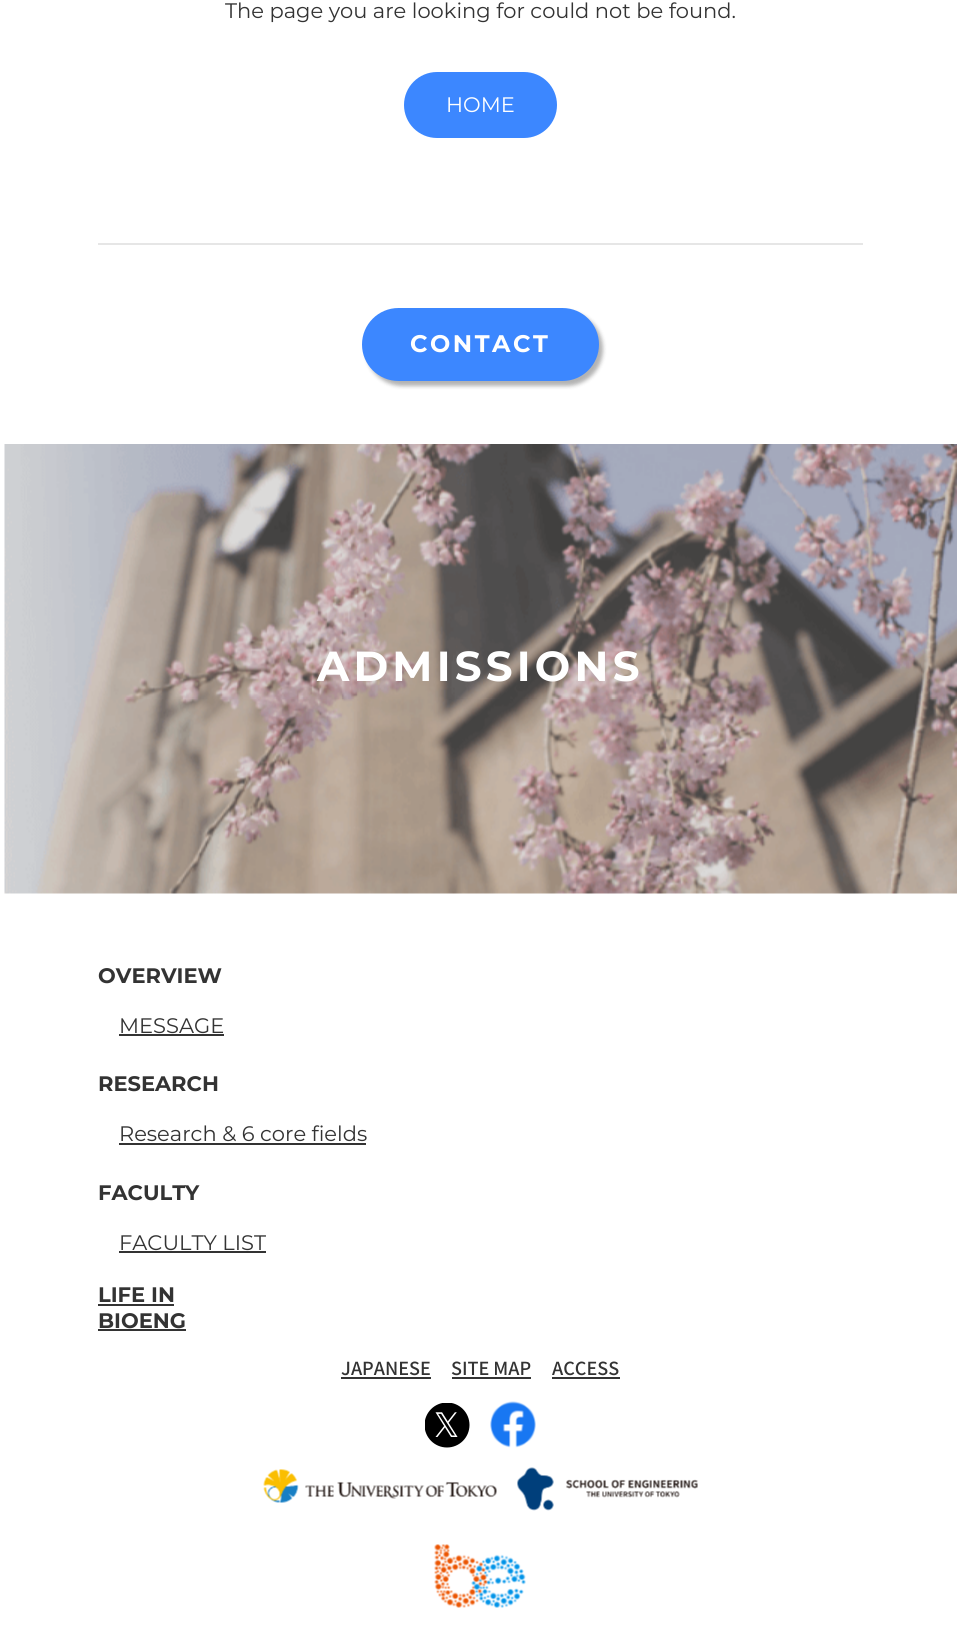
#include <cairo/cairo.h>
#include <math.h>
#include <stddef.h>

static cairo_t *cr;

static void use_color(int r, int g, int b) {
  cairo_set_source_rgb(cr, r / 255.0, g / 255.0, b / 255.0);
}

static void text(double x, double y, const char *s, const char *family, double size, int italic, int bold, int r, int g, int b) {
  cairo_select_font_face(cr, family, italic ? CAIRO_FONT_SLANT_ITALIC : CAIRO_FONT_SLANT_NORMAL,
    bold ? CAIRO_FONT_WEIGHT_BOLD : CAIRO_FONT_WEIGHT_NORMAL);
  cairo_set_font_size(cr, size);
  use_color(r, g, b);
  cairo_move_to(cr, x, y);
  cairo_show_text(cr, s);
}

static void spaced_text(double x, double y, const char *s, double letter, double word) {
  cairo_move_to(cr, x, y);
  while (*s) {
    char ch[5] = {0};
    int n = 0;
    do ch[n++] = *s++; while ((*s & 0xC0) == 0x80);
    cairo_show_text(cr, ch);
    cairo_rel_move_to(cr, letter + word * (*ch == ' '), 0);
  }
}

static void box(double x, double y, double w, double h, int r, int g, int b) {
  use_color(r, g, b);
  cairo_rectangle(cr, x, y, w, h);
  cairo_fill(cr);
}

static void round_rect(double x, double y, double w, double h, double r) {
  cairo_new_sub_path(cr);
  cairo_arc(cr, x + w - r, y + h - r, r, 0, M_PI / 2);
  cairo_arc(cr, x + r, y + h - r, r, M_PI / 2, M_PI);
  cairo_arc(cr, x + r, y + r, r, M_PI, 1.5 * M_PI);
  cairo_arc(cr, x + w - r, y + r, r, 1.5 * M_PI, 2 * M_PI);
  cairo_close_path(cr);
}

static void shadow(double x, double y, double w, double h, double r, double blur, double alpha) {
  cairo_push_group_with_content(cr, CAIRO_CONTENT_ALPHA);
  cairo_set_operator(cr, CAIRO_OPERATOR_SOURCE);
  for (int i = 15; i >= -15 && fmin(w, h) + blur * i / 3 > 0; i -= 2) {
    double e = blur * i / 6;
    cairo_set_source_rgba(cr, 0, 0, 0, alpha * erfc((i - 1) / 8.5) / 2);
    round_rect(x - e, y - e, w + 2 * e, h + 2 * e, fmax(0, fmin(r + e + blur * .6, fmin(w, h) / 2 + e)));
    cairo_fill(cr);
  }
  cairo_pattern_t *soft = cairo_pop_group(cr);
  cairo_mask(cr, soft);
  cairo_pattern_destroy(soft);
}

static void picture(const char *path, double x, double y, double w, double h) {
  cairo_surface_t *image = cairo_image_surface_create_from_png(path);
  cairo_save(cr);
  cairo_set_source_surface(cr, image, x, y);
  cairo_rectangle(cr, x, y, w, h);
  cairo_fill(cr);
  cairo_restore(cr);
  cairo_surface_destroy(image);
}

static void draw(void) {
  use_color(255, 255, 255);
  cairo_paint(cr);
  use_color(60, 135, 255);
  round_rect(404, 72, 153, 66, 33);
  cairo_fill(cr);
  box(98, 243, 765, 2, 230, 230, 230);
  use_color(0, 0, 0);
  shadow(366, 312, 237, 74, 37, 2, 0.3);
  use_color(60, 135, 255);
  round_rect(362, 308, 237, 73, 36.5);
  cairo_fill(cr);
  picture("img_01.png", 4, 444, 953, 450);
  box(119, 1034, 105, 2, 51, 51, 51);
  box(119, 1143, 247, 2, 51, 51, 51);
  box(119, 1251, 147, 2, 51, 51, 51);
  box(98, 1304, 76, 2, 51, 51, 51);
  box(98, 1329, 88, 2, 51, 51, 51);
  box(341, 1377, 90, 2, 51, 51, 51);
  box(452, 1377, 79, 2, 51, 51, 51);
  box(552, 1377, 68, 2, 51, 51, 51);
  picture("img_02.png", 425, 1403, 45, 45);
  picture("img_03.png", 490, 1401, 46, 47);
  picture("img_04.png", 263, 1469, 234, 34);
  picture("img_05.png", 517, 1467, 181, 44);
  picture("img_06.png", 434, 1544, 92, 64);
  text(225, 18, "The page you are looking for could not be found.", "Montserrat", 21, 0, 0, 51, 51, 51);
  text(446, 112, "HOME", "Montserrat", 21, 0, 0, 255, 255, 255);
  cairo_select_font_face(cr, "Montserrat", CAIRO_FONT_SLANT_NORMAL, CAIRO_FONT_WEIGHT_BOLD);
  cairo_set_font_size(cr, 24);
  spaced_text(410, 352, "CONTACT", 2.5, 0);
  cairo_set_font_size(cr, 42);
  spaced_text(317, 681, "ADMISSIONS", 4.25, 0);
  text(98, 983, "OVERVIEW", "Montserrat", 21, 0, 1, 51, 51, 51);
  text(119, 1033, "MESSAGE", "Montserrat", 21, 0, 0, 51, 51, 51);
  text(98, 1091, "RESEARCH", "Montserrat", 21, 0, 1, 51, 51, 51);
  text(119, 1141, "Research & 6 core fields", "Montserrat", 21, 0, 0, 51, 51, 51);
  text(98, 1200, "FACULTY", "Montserrat", 21, 0, 1, 51, 51, 51);
  text(119, 1250, "FACULTY LIST", "Montserrat", 21, 0, 0, 51, 51, 51);
  text(98, 1302, "LIFE IN", "Montserrat", 21, 0, 1, 51, 51, 51);
  text(98, 1328, "BIOENG", "Montserrat", 21, 0, 1, 51, 51, 51);
  text(341, 1375, "JAPANESE", "Noto Sans JP Medium", 18, 0, 0, 51, 51, 51);
  text(451, 1375, "SITE MAP", "Noto Sans JP Medium", 18, 0, 0, 51, 51, 51);
  text(552, 1375, "ACCESS", "Noto Sans JP Medium", 18, 0, 0, 51, 51, 51);
}

int main(void) {
  cairo_surface_t *surface = cairo_image_surface_create(CAIRO_FORMAT_RGB24, 960, 1633);
  cr = cairo_create(surface);
  cairo_font_options_t *options = cairo_font_options_create();
  cairo_font_options_set_hint_metrics(options, CAIRO_HINT_METRICS_OFF);
  cairo_font_options_set_hint_style(options, CAIRO_HINT_STYLE_NONE);
  cairo_set_font_options(cr, options);
  cairo_set_miter_limit(cr, 4);
  draw();
  cairo_surface_write_to_png(surface, "out.png");
  cairo_font_options_destroy(options);
  cairo_destroy(cr);
  cairo_surface_destroy(surface);
  return 0;
}
